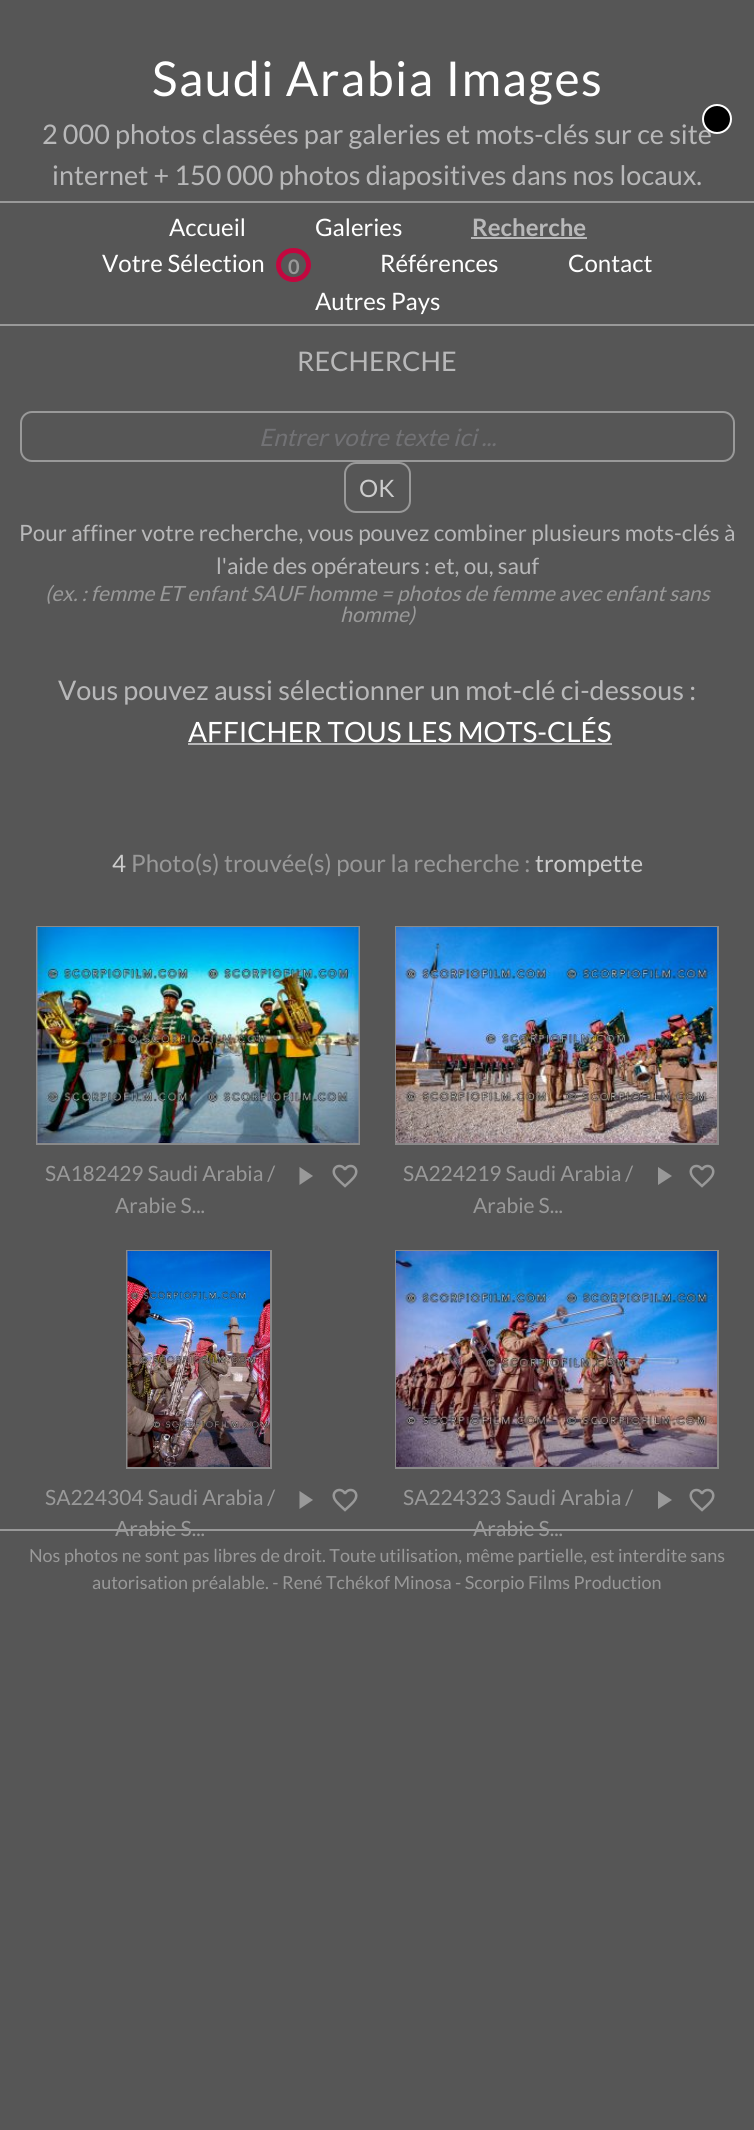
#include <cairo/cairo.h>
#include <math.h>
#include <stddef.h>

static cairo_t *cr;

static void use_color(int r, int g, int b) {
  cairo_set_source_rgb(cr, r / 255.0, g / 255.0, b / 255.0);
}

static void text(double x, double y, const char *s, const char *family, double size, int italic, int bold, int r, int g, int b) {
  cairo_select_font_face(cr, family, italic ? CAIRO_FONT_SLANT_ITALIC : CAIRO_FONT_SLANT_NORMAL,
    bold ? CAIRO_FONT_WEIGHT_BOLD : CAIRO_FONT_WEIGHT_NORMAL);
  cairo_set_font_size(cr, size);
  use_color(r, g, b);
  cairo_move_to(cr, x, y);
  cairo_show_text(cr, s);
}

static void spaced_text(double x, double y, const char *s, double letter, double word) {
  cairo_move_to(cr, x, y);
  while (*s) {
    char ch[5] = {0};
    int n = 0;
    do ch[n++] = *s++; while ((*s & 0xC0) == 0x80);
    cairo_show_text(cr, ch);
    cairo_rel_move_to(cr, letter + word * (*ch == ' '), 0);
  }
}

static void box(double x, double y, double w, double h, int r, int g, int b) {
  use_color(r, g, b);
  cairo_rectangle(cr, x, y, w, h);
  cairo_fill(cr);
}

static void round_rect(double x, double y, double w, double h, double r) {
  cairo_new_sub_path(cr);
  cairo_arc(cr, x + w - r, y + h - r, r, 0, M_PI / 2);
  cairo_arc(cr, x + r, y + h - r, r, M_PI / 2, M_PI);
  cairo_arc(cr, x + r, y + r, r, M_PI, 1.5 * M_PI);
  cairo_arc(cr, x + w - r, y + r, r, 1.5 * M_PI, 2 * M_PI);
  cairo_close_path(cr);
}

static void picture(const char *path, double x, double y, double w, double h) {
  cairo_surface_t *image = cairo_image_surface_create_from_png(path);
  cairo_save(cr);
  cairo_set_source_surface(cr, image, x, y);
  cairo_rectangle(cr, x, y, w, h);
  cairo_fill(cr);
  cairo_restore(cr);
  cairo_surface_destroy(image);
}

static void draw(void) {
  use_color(86, 86, 86);
  cairo_paint(cr);
  box(0, 324, 754, 2, 153, 153, 153);
  box(0, 201, 754, 2, 153, 153, 153);
  box(471, 237, 116, 2, 184, 184, 185);
  round_rect(278.5, 250.5, 30, 29, 14.5);
  use_color(195, 7, 63);
  cairo_set_line_width(cr, 5);
  cairo_stroke(cr);
  round_rect(21, 412, 713, 49, 11);
  use_color(153, 153, 153);
  cairo_set_line_width(cr, 2);
  cairo_stroke(cr);
  round_rect(345, 463, 65, 49, 11);
  cairo_stroke(cr);
  box(188, 743, 424, 2, 184, 184, 185);
  cairo_rectangle(cr, 37, 927, 322, 217);
  use_color(137, 137, 137);
  cairo_stroke(cr);
  picture("img_01.png", 37, 927, 322, 216);
  use_color(153, 153, 153);
  cairo_new_path(cr);
  cairo_move_to(cr, 299.5, 1167);
  cairo_line_to(cr, 299.5, 1185);
  cairo_line_to(cr, 313, 1176);
  cairo_close_path(cr);
  cairo_fill(cr);
  picture("img_02.png", 332, 1164, 26, 24);
  cairo_rectangle(cr, 396, 927, 322, 217);
  use_color(137, 137, 137);
  cairo_stroke(cr);
  picture("img_03.png", 396, 927, 321, 216);
  use_color(153, 153, 153);
  cairo_new_path(cr);
  cairo_move_to(cr, 658, 1167);
  cairo_line_to(cr, 658, 1185);
  cairo_line_to(cr, 672, 1176);
  cairo_close_path(cr);
  cairo_fill(cr);
  picture("img_02.png", 689, 1164, 26, 24);
  cairo_rectangle(cr, 127, 1251, 144, 217);
  use_color(137, 137, 137);
  cairo_stroke(cr);
  picture("img_04.png", 127, 1251, 143, 216);
  use_color(153, 153, 153);
  cairo_new_path(cr);
  cairo_move_to(cr, 299.5, 1491);
  cairo_line_to(cr, 299.5, 1509);
  cairo_line_to(cr, 313, 1500);
  cairo_close_path(cr);
  cairo_fill(cr);
  picture("img_02.png", 332, 1488, 26, 24);
  cairo_rectangle(cr, 396, 1251, 322, 217);
  use_color(137, 137, 137);
  cairo_stroke(cr);
  picture("img_05.png", 396, 1251, 321, 216);
  use_color(153, 153, 153);
  cairo_new_path(cr);
  cairo_move_to(cr, 658, 1491);
  cairo_line_to(cr, 658, 1509);
  cairo_line_to(cr, 672, 1500);
  cairo_close_path(cr);
  cairo_fill(cr);
  picture("img_02.png", 689, 1488, 26, 24);
  box(0, 1529, 754, 2, 153, 153, 153);
  cairo_select_font_face(cr, "Lato", CAIRO_FONT_SLANT_NORMAL, CAIRO_FONT_WEIGHT_NORMAL);
  cairo_set_font_size(cr, 48);
  use_color(255, 255, 255);
  spaced_text(152, 96, "Saudi Arabia Images", 1.5, 0);
  text(42, 144, "2 000 photos classées par galeries et mots-clés sur ce site", "Lato", 27, 0, 0, 184, 184, 185);
  text(52, 185, "internet + 150 000 photos diapositives dans nos locaux.", "Lato", 27, 0, 0, 184, 184, 185);
  use_color(0, 0, 0);
  cairo_new_path(cr);
  cairo_arc(cr, 717, 119, 14, 0, 2 * M_PI);
  cairo_fill_preserve(cr);
  use_color(255, 255, 255);
  cairo_stroke(cr);
  text(169, 236, "Accueil", "Lato", 24, 0, 0, 255, 255, 255);
  text(315, 236, "Galeries", "Lato", 24, 0, 0, 255, 255, 255);
  text(472, 236, "Recherche", "Lato", 24, 0, 1, 184, 184, 185);
  text(102, 272, "Votre Sélection", "Lato", 24, 0, 0, 255, 255, 255);
  text(288, 274, "0", "Lato", 20, 0, 1, 153, 153, 153);
  text(380, 272, "Références", "Lato", 24, 0, 0, 255, 255, 255);
  text(568, 272, "Contact", "Lato", 24, 0, 0, 255, 255, 255);
  text(315, 310, "Autres Pays", "Lato", 24, 0, 0, 255, 255, 255);
  text(297, 371, "RECHERCHE", "Lato", 27, 0, 0, 184, 184, 185);
  text(259, 446, "Entrer votre texte ici ...", "Lato", 24, 1, 0, 114, 114, 117);
  text(359, 497, "OK", "Lato", 24, 0, 0, 204, 204, 204);
  text(19, 541, "Pour affiner votre recherche, vous pouvez combiner plusieurs mots-clés à", "Lato", 22.5, 0, 0, 184, 184, 185);
  text(216, 574, "l'aide des opérateurs : et, ou, sauf", "Lato", 22.5, 0, 0, 184, 184, 185);
  text(45, 601, "(ex. : femme ET enfant SAUF homme = photos de femme avec enfant sans", "Lato", 21, 1, 0, 153, 153, 153);
  text(340, 622, "homme)", "Lato", 21, 1, 0, 153, 153, 153);
  text(58, 700, "Vous pouvez aussi sélectionner un mot-clé ci-dessous :", "Lato", 27, 0, 0, 184, 184, 185);
  text(188, 742, "AFFICHER TOUS LES MOTS-CLÉS", "Lato", 28, 0, 0, 255, 255, 255);
  text(112, 872, "4", "Lato", 24, 0, 0, 204, 204, 204);
  text(131, 872, "Photo(s) trouvée(s) pour la recherche :", "Lato", 24, 0, 0, 153, 153, 153);
  text(535, 872, "trompette", "Lato", 24, 0, 0, 204, 204, 204);
  text(45, 1181, "SA182429 Saudi Arabia /", "Lato", 21, 0, 0, 153, 153, 153);
  text(115, 1213, "Arabie S...", "Lato", 21, 0, 0, 153, 153, 153);
  text(403, 1181, "SA224219 Saudi Arabia /", "Lato", 21, 0, 0, 153, 153, 153);
  text(473, 1213, "Arabie S...", "Lato", 21, 0, 0, 153, 153, 153);
  text(45, 1505, "SA224304 Saudi Arabia /", "Lato", 21, 0, 0, 153, 153, 153);
  text(115, 1536, "Arabie S...", "Lato", 21, 0, 0, 153, 153, 153);
  text(403, 1505, "SA224323 Saudi Arabia /", "Lato", 21, 0, 0, 153, 153, 153);
  text(473, 1536, "Arabie S...", "Lato", 21, 0, 0, 153, 153, 153);
  text(29, 1562, "Nos photos ne sont pas libres de droit. Toute utilisation, même partielle, est interdite sans", "Lato", 18, 0, 0, 153, 153, 153);
  text(92, 1589, "autorisation préalable. - René Tchékof Minosa - Scorpio Films Production", "Lato", 18, 0, 0, 153, 153, 153);
}

int main(void) {
  cairo_surface_t *surface = cairo_image_surface_create(CAIRO_FORMAT_RGB24, 754, 2130);
  cr = cairo_create(surface);
  cairo_font_options_t *options = cairo_font_options_create();
  cairo_font_options_set_hint_metrics(options, CAIRO_HINT_METRICS_OFF);
  cairo_font_options_set_hint_style(options, CAIRO_HINT_STYLE_NONE);
  cairo_set_font_options(cr, options);
  cairo_set_miter_limit(cr, 4);
  draw();
  cairo_surface_write_to_png(surface, "out.png");
  cairo_font_options_destroy(options);
  cairo_destroy(cr);
  cairo_surface_destroy(surface);
  return 0;
}
